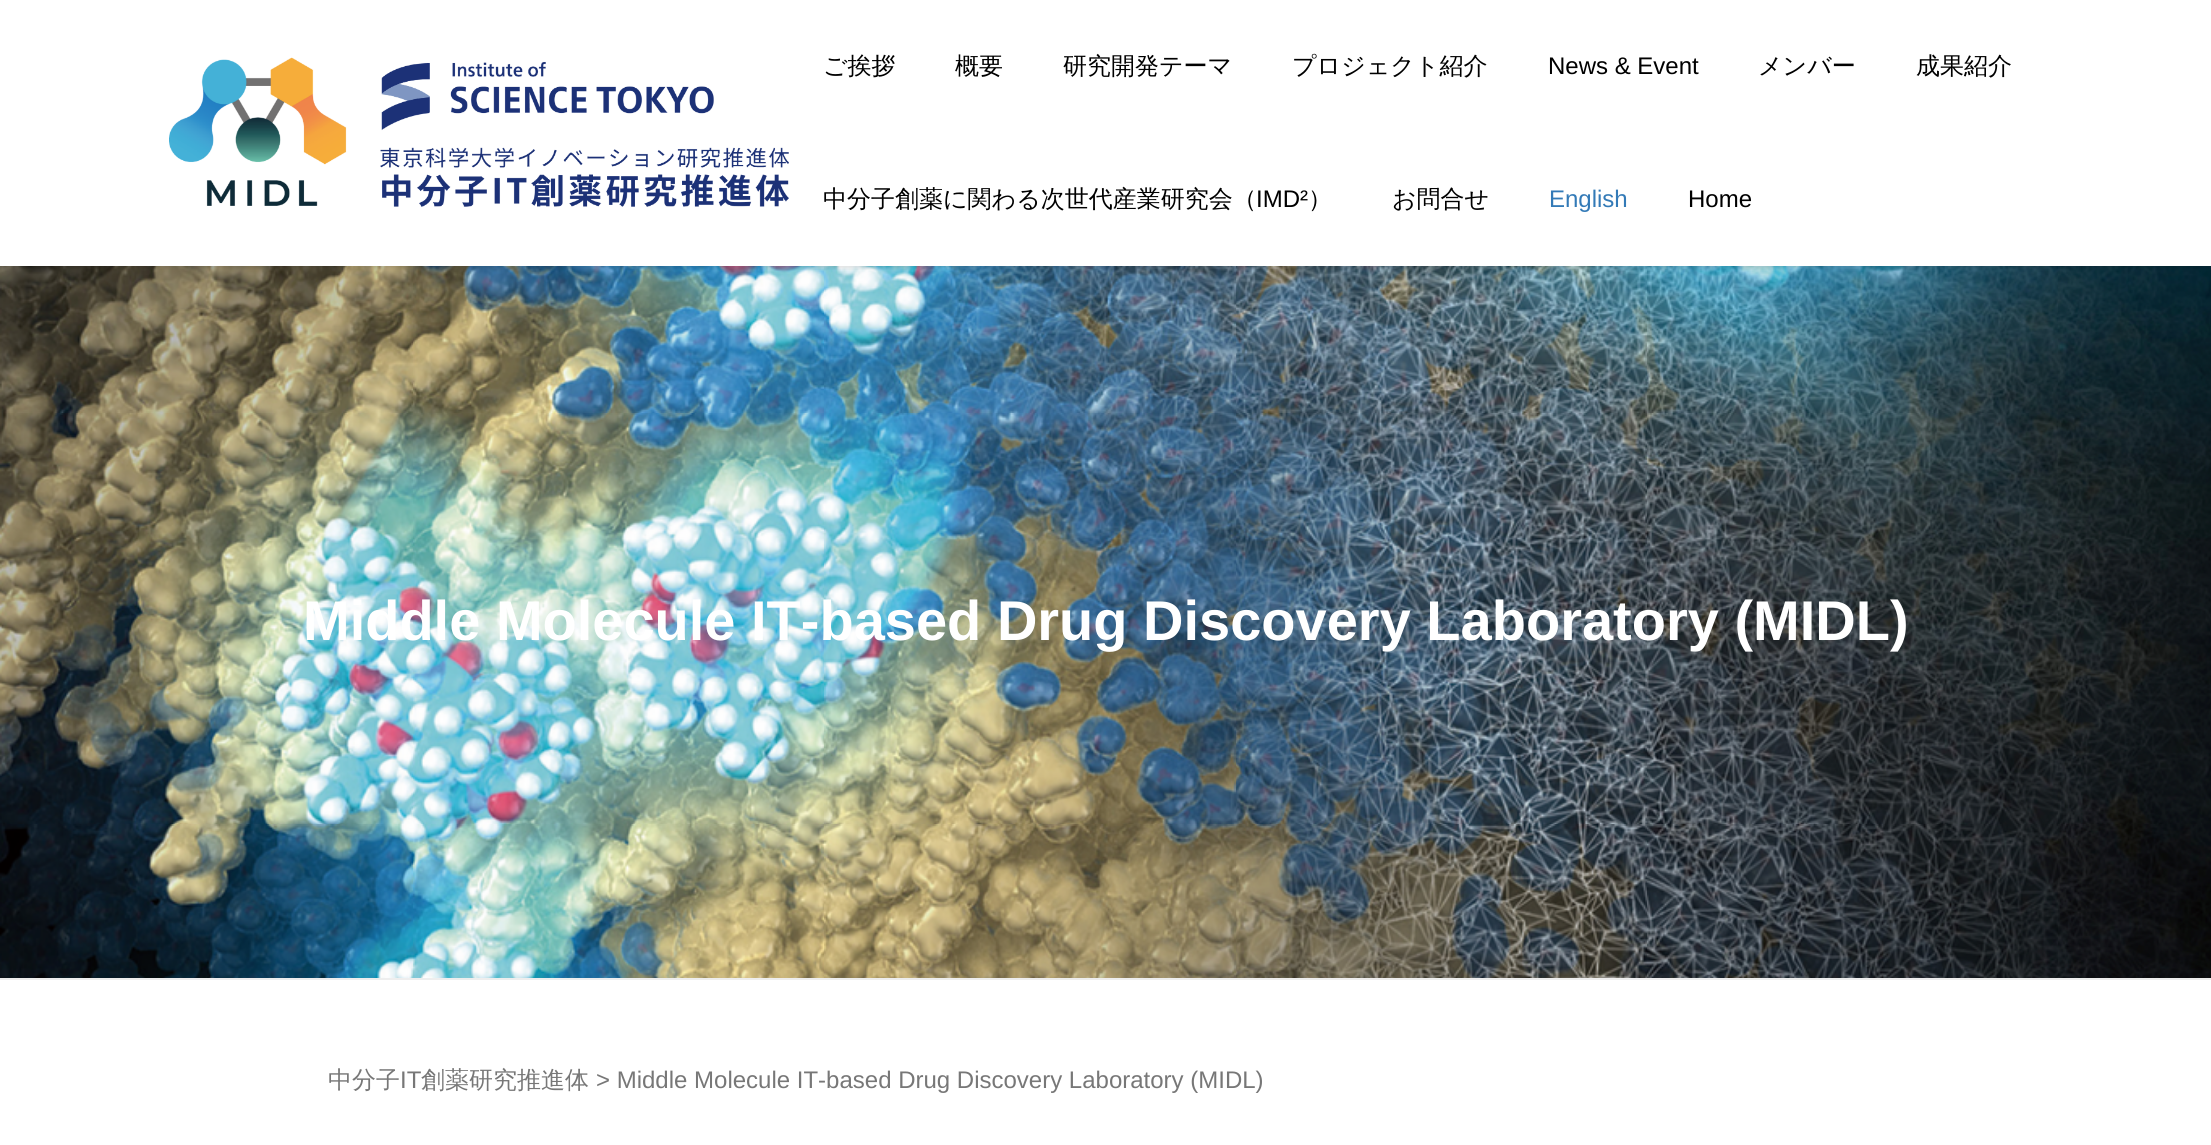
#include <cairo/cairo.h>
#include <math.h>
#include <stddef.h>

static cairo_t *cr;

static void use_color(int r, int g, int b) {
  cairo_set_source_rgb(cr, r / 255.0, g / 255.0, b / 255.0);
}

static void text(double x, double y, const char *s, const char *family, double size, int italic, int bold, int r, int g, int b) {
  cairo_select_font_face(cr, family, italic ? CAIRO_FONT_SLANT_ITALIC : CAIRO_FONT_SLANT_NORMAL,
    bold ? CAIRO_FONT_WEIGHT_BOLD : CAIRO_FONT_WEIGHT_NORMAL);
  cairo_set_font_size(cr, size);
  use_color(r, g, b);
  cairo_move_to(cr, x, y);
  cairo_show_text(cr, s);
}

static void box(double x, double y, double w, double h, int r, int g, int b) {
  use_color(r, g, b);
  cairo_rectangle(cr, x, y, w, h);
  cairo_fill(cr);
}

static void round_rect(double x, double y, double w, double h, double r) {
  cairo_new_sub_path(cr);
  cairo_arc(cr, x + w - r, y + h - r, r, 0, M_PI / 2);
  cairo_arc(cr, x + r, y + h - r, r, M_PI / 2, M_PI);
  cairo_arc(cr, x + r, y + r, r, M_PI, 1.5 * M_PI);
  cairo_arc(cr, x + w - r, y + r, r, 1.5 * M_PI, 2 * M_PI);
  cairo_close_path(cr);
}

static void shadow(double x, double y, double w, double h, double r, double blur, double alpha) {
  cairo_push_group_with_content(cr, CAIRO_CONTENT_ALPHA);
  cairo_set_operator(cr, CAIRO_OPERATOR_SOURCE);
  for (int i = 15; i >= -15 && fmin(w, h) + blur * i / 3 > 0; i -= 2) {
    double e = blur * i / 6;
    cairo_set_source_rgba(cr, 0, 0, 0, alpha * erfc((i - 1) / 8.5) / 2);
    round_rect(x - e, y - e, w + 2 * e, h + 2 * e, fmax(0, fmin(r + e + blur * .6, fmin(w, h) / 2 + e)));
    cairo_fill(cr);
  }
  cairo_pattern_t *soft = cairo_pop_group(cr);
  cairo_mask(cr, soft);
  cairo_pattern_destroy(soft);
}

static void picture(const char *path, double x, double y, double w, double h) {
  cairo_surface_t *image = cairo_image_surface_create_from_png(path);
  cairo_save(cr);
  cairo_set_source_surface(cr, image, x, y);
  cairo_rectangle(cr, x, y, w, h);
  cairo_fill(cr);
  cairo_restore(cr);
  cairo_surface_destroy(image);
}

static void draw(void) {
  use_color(255, 255, 255);
  cairo_paint(cr);
  picture("img_02.png", 0, 266, 2211, 712);
  cairo_save(cr);
  cairo_rectangle(cr, 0, 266, 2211, 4);
  cairo_clip(cr);
  use_color(0, 0, 0);
  shadow(0, 0, 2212, 266, 0, 3, 0.2);
  cairo_restore(cr);
  picture("img_01.png", 169, 57, 620, 150);
  box(0, 978, 2211, 2, 238, 238, 238);
  text(823, 74, "ご挨拶", "WenQuanYi Zen Hei Medium", 24, 0, 0, 0, 0, 0);
  text(955, 74, "概要", "WenQuanYi Zen Hei Medium", 24, 0, 0, 0, 0, 0);
  text(1063, 74, "研究開発テーマ", "WenQuanYi Zen Hei Medium", 24, 0, 0, 0, 0, 0);
  text(1292, 74, "プロジェクト紹介", "WenQuanYi Zen Hei Medium", 24, 0, 0, 0, 0, 0);
  text(1548, 74, "News & Event", "Liberation Sans", 24, 0, 0, 0, 0, 0);
  text(1758, 74, "メンバー", "WenQuanYi Zen Hei Medium", 24, 0, 0, 0, 0, 0);
  text(1916, 74, "成果紹介", "WenQuanYi Zen Hei Medium", 24, 0, 0, 0, 0, 0);
  text(823, 207, "中分子創薬に関わる次世代産業研究会（", "WenQuanYi Zen Hei Medium", 24, 0, 0, 0, 0, 0);
  text(1256, 207, "IMD²", "Liberation Sans", 24, 0, 0, 0, 0, 0);
  text(1308, 207, "）", "WenQuanYi Zen Hei Medium", 24, 0, 0, 0, 0, 0);
  text(1392, 207, "お問合せ", "WenQuanYi Zen Hei Medium", 24, 0, 0, 0, 0, 0);
  text(1549, 207, "English", "Liberation Sans", 24, 0, 0, 51, 122, 183);
  text(1688, 207, "Home", "Liberation Sans", 24, 0, 0, 0, 0, 0);
  text(303, 640, "Middle Molecule IT-based Drug Discovery Laboratory (MIDL)", "Liberation Sans", 56, 0, 1, 255, 255, 255);
  text(328, 1088, "中分子", "WenQuanYi Zen Hei Medium", 24, 0, 0, 119, 119, 119);
  text(400, 1088, "IT", "Liberation Sans", 24, 0, 0, 119, 119, 119);
  text(421, 1088, "創薬研究推進体", "WenQuanYi Zen Hei Medium", 24, 0, 0, 119, 119, 119);
  text(596, 1088, "> Middle Molecule IT-based Drug Discovery Laboratory (MIDL)", "Liberation Sans", 24, 0, 0, 119, 119, 119);
}

int main(void) {
  cairo_surface_t *surface = cairo_image_surface_create(CAIRO_FORMAT_RGB24, 2211, 1145);
  cr = cairo_create(surface);
  cairo_font_options_t *options = cairo_font_options_create();
  cairo_font_options_set_hint_metrics(options, CAIRO_HINT_METRICS_OFF);
  cairo_font_options_set_hint_style(options, CAIRO_HINT_STYLE_NONE);
  cairo_set_font_options(cr, options);
  cairo_set_miter_limit(cr, 4);
  draw();
  cairo_surface_write_to_png(surface, "out.png");
  cairo_font_options_destroy(options);
  cairo_destroy(cr);
  cairo_surface_destroy(surface);
  return 0;
}
